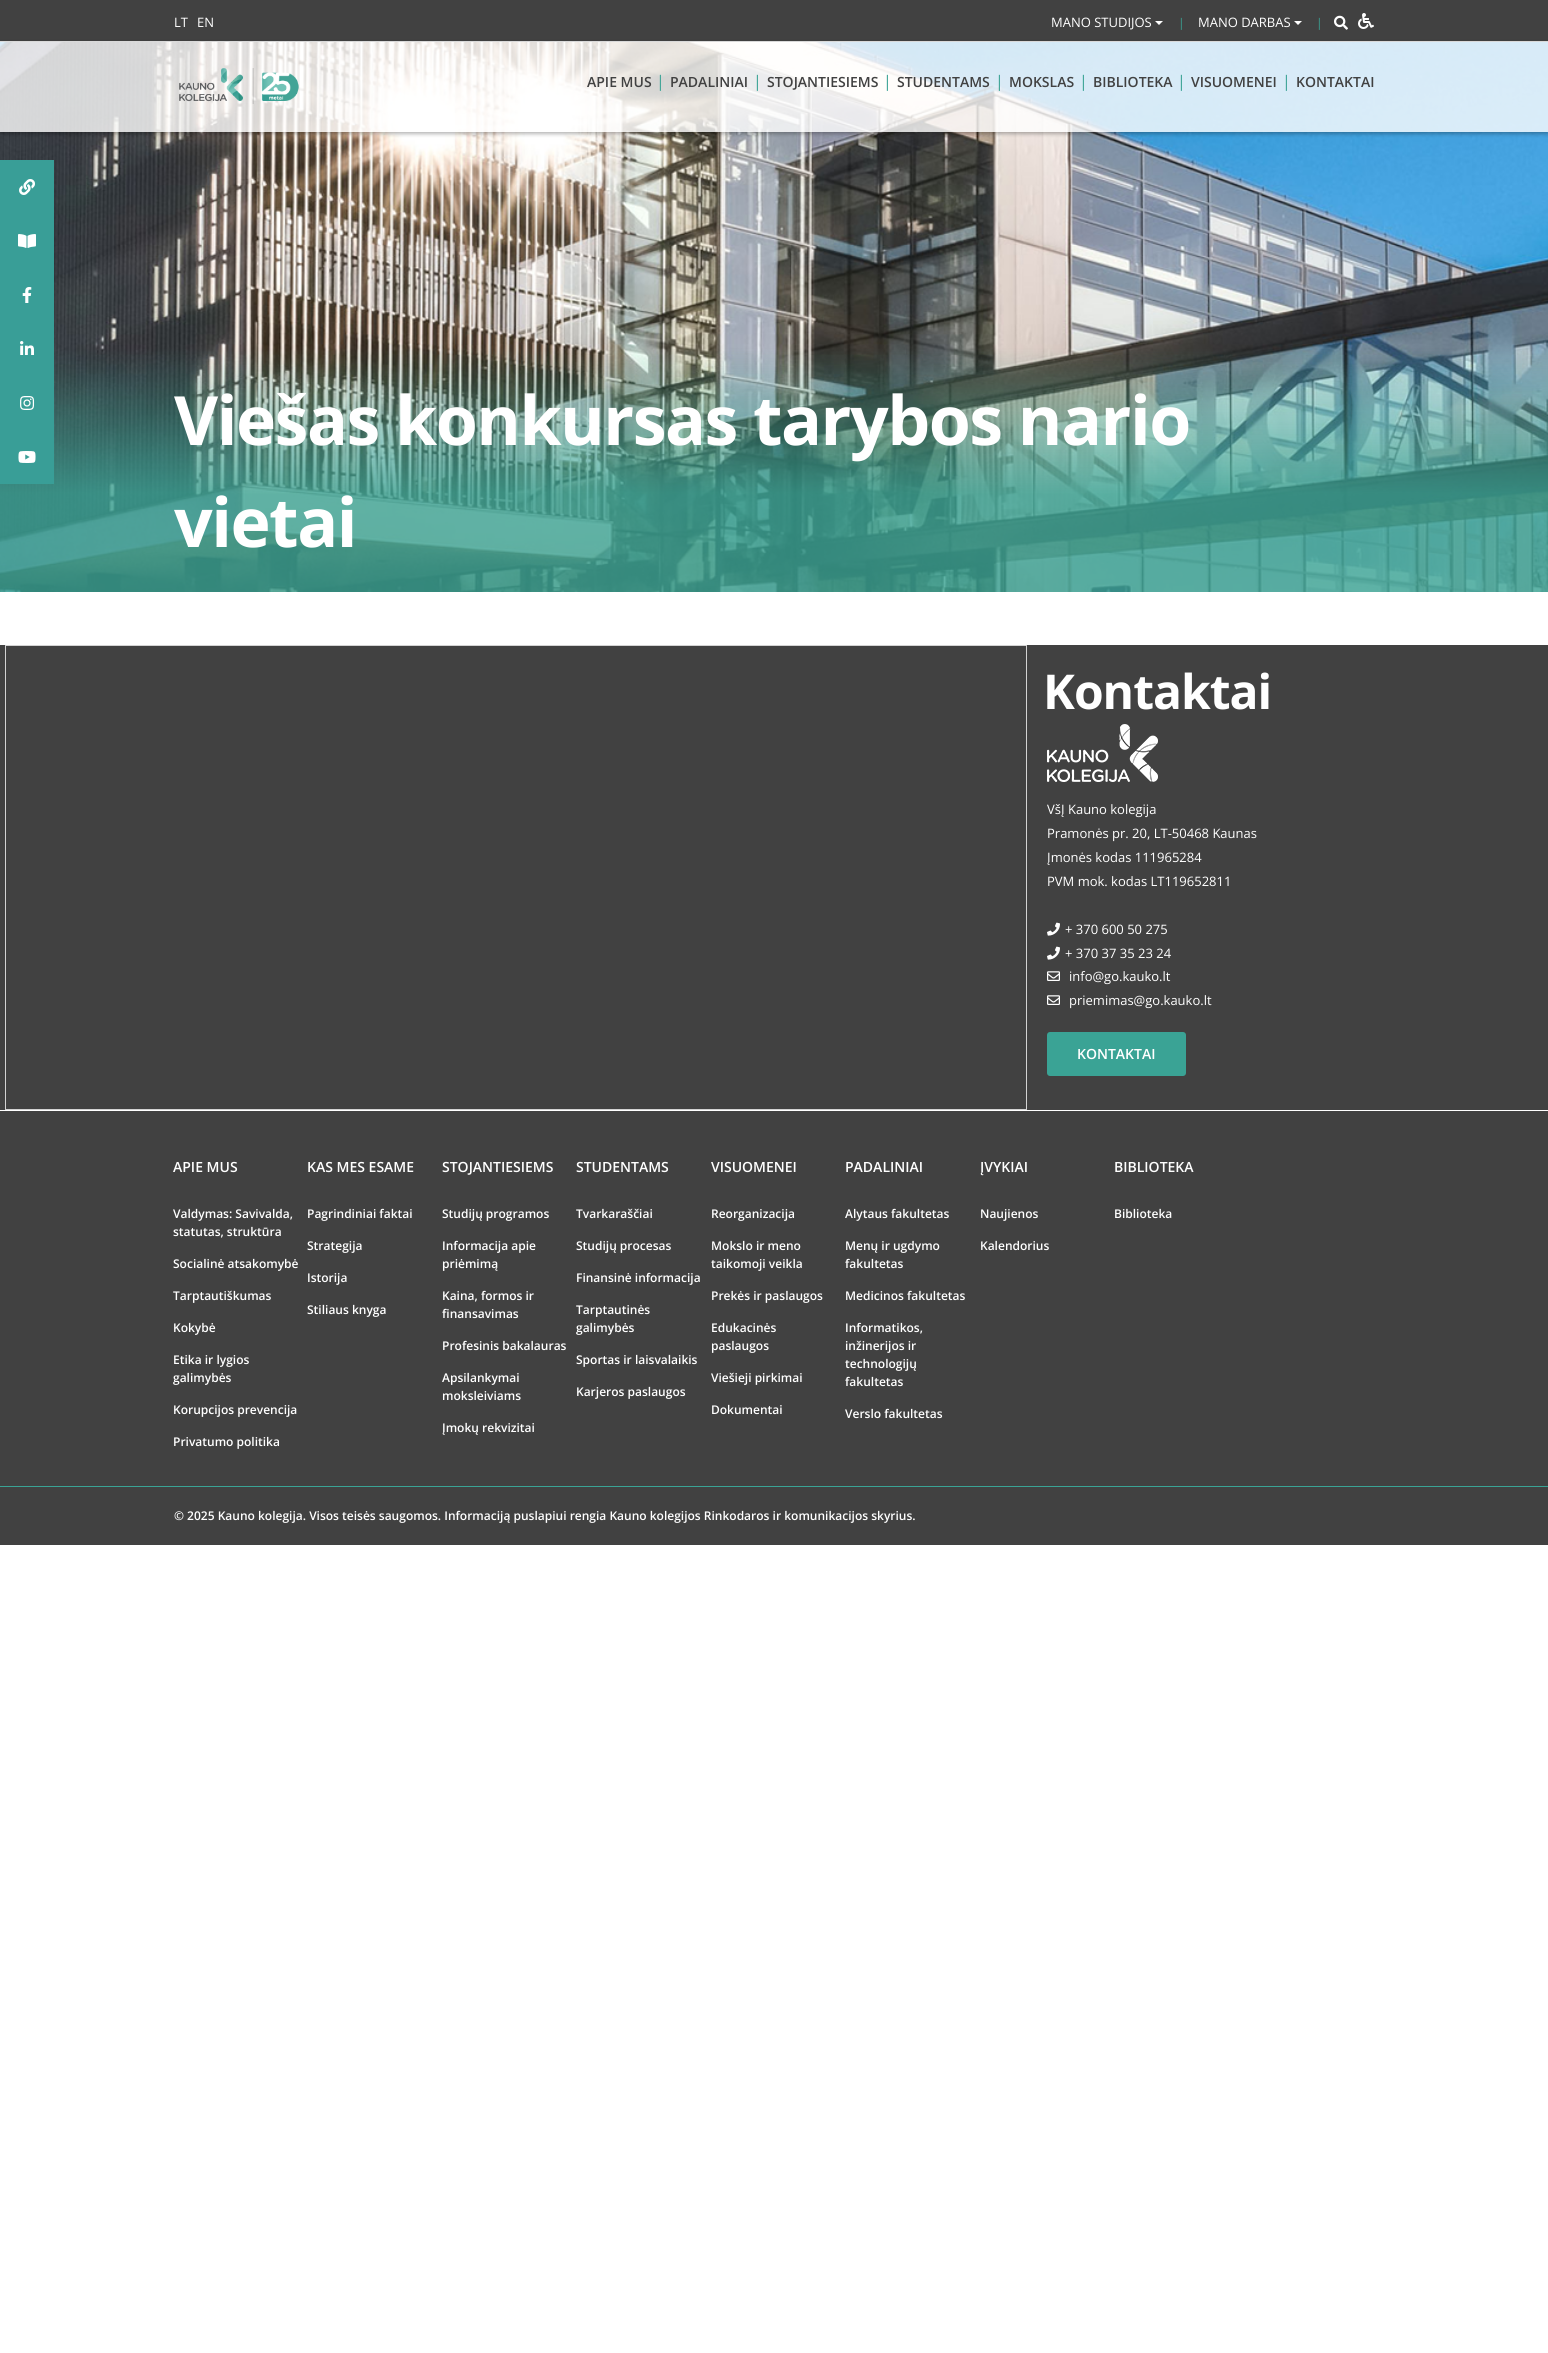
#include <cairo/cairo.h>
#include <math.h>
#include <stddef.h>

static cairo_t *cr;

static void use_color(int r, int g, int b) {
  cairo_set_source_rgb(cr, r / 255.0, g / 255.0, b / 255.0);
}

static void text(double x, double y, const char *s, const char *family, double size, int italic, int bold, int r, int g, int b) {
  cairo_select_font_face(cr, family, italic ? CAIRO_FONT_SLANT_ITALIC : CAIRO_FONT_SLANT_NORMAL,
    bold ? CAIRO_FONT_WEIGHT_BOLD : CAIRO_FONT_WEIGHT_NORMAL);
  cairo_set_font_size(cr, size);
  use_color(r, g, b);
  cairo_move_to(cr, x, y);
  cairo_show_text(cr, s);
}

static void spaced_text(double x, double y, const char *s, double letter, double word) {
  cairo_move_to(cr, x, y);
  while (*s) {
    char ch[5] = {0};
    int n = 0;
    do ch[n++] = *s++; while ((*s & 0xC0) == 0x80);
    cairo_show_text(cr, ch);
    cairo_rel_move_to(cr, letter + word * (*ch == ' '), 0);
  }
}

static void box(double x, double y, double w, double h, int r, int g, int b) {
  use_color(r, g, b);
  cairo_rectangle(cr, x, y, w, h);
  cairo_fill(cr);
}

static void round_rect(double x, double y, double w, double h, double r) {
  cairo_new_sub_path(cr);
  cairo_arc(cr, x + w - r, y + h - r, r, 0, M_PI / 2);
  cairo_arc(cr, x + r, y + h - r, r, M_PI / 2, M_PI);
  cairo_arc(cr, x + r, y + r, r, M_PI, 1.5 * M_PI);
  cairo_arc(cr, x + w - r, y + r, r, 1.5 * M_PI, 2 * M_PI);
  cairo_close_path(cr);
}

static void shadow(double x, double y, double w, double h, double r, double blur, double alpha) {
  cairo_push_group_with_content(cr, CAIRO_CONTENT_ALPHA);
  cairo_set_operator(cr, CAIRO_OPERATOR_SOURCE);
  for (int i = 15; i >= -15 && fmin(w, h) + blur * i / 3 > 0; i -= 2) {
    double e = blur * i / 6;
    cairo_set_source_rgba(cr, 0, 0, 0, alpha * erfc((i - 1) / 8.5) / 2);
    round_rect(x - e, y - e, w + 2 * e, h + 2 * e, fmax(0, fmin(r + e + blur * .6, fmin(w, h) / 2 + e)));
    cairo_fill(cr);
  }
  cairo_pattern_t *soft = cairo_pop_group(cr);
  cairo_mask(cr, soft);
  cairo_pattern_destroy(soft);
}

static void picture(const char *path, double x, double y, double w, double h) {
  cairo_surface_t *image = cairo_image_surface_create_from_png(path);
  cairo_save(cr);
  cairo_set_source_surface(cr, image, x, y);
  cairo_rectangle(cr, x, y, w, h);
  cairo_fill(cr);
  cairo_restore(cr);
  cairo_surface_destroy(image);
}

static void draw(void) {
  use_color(255, 255, 255);
  cairo_paint(cr);
  picture("img_10.png", 0, 42, 1548, 550);
  box(0, 160, 54, 324, 57, 158, 151);
  picture("img_01.png", 19, 179, 16, 16);
  picture("img_02.png", 18, 234, 18, 14);
  picture("img_03.png", 22, 287, 10, 16);
  picture("img_04.png", 20, 341, 14, 14);
  picture("img_05.png", 20, 396, 15, 14);
  picture("img_06.png", 18, 451, 18, 12);
  box(0, 0, 1548, 42, 65, 65, 65);
  use_color(255, 255, 255);
  cairo_new_path(cr);
  cairo_move_to(cr, 1155, 21);
  cairo_line_to(cr, 1163, 21);
  cairo_line_to(cr, 1159, 25);
  cairo_close_path(cr);
  cairo_fill(cr);
  cairo_new_path(cr);
  cairo_move_to(cr, 1294, 21);
  cairo_line_to(cr, 1302, 21);
  cairo_line_to(cr, 1298, 25);
  cairo_close_path(cr);
  cairo_fill(cr);
  picture("img_07.png", 1334, 15, 14, 15);
  picture("img_08.png", 1358, 13, 16, 16);
  cairo_save(cr);
  cairo_set_fill_rule(cr, CAIRO_FILL_RULE_EVEN_ODD);
  cairo_new_path(cr);
  cairo_move_to(cr, 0, 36);
  cairo_line_to(cr, 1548, 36);
  cairo_line_to(cr, 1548, 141);
  cairo_line_to(cr, 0, 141);
  cairo_close_path(cr);
  cairo_move_to(cr, 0, 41);
  cairo_line_to(cr, 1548, 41);
  cairo_line_to(cr, 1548, 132);
  cairo_line_to(cr, 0, 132);
  cairo_close_path(cr);
  cairo_clip(cr);
  use_color(0, 0, 0);
  shadow(0, 43, 1548, 91, 0, 2, 0.29);
  cairo_restore(cr);
  cairo_set_source_rgba(cr, 1, 1, 1, 0.8);
  cairo_rectangle(cr, 0, 41, 1548, 91);
  cairo_fill(cr);
  picture("img_09.png", 179, 68, 120, 36);
  box(0, 645, 1548, 465, 65, 65, 65);
  cairo_rectangle(cr, 5.5, 645.5, 1021, 464);
  use_color(211, 211, 211);
  cairo_set_line_width(cr, 1);
  cairo_stroke(cr);
  picture("img_11.png", 1047, 724, 111, 58);
  picture("img_12.png", 1047, 922, 13, 14);
  picture("img_12.png", 1047, 946, 13, 14);
  picture("img_13.png", 1047, 971, 13, 10);
  picture("img_13.png", 1047, 995, 13, 10);
  use_color(58, 163, 149);
  round_rect(1047, 1032, 139, 44, 3);
  cairo_fill(cr);
  box(0, 1111, 1548, 375, 65, 65, 65);
  box(0, 1487, 1548, 58, 65, 65, 65);
  box(0, 1486, 1548, 1, 58, 163, 149);
  text(174, 27, "LT", "Open Sans", 13, 0, 0, 255, 255, 255);
  text(197, 27, "EN", "Open Sans", 13, 0, 0, 255, 255, 255);
  text(1051, 27, "MANO STUDIJOS", "Open Sans", 13, 0, 0, 255, 255, 255);
  text(1178, 27, "|", "Open Sans", 12, 0, 0, 58, 163, 149);
  text(1198, 27, "MANO DARBAS", "Open Sans", 13, 0, 0, 255, 255, 255);
  text(1316, 27, "|", "Open Sans", 12, 0, 0, 58, 163, 149);
  text(587, 87, "APIE MUS", "Open Sans SemiBold", 14, 0, 0, 65, 65, 65);
  text(656, 87, "|", "Open Sans", 16, 0, 0, 58, 163, 149);
  text(670, 87, "PADALINIAI", "Open Sans SemiBold", 14, 0, 0, 65, 65, 65);
  text(753, 87, "|", "Open Sans", 16, 0, 0, 58, 163, 149);
  text(767, 87, "STOJANTIESIEMS", "Open Sans SemiBold", 14, 0, 0, 65, 65, 65);
  text(883, 87, "|", "Open Sans", 16, 0, 0, 58, 163, 149);
  text(897, 87, "STUDENTAMS", "Open Sans SemiBold", 14, 0, 0, 65, 65, 65);
  text(995, 87, "|", "Open Sans", 16, 0, 0, 58, 163, 149);
  text(1009, 87, "MOKSLAS", "Open Sans SemiBold", 14, 0, 0, 65, 65, 65);
  text(1079, 87, "|", "Open Sans", 16, 0, 0, 58, 163, 149);
  text(1093, 87, "BIBLIOTEKA", "Open Sans SemiBold", 14, 0, 0, 65, 65, 65);
  text(1177, 87, "|", "Open Sans", 16, 0, 0, 58, 163, 149);
  text(1191, 87, "VISUOMENEI", "Open Sans SemiBold", 14, 0, 0, 65, 65, 65);
  text(1282, 87, "|", "Open Sans", 16, 0, 0, 58, 163, 149);
  text(1296, 87, "KONTAKTAI", "Open Sans SemiBold", 14, 0, 0, 65, 65, 65);
  cairo_select_font_face(cr, "Open Sans", CAIRO_FONT_SLANT_NORMAL, CAIRO_FONT_WEIGHT_BOLD);
  cairo_set_font_size(cr, 68);
  use_color(255, 255, 255);
  spaced_text(174, 445, "Viešas konkursas tarybos nario", -1.5, 0);
  spaced_text(174, 547, "vietai", -1.5, 0);
  cairo_set_font_size(cr, 48);
  spaced_text(1043, 709, "Kontaktai", -1, 0);
  text(1047, 814, "VšĮ Kauno kolegija", "Open Sans", 13, 0, 0, 255, 255, 255);
  text(1047, 838, "Pramonės pr. 20, LT-50468 Kaunas", "Open Sans", 13, 0, 0, 255, 255, 255);
  text(1047, 862, "Įmonės kodas 111965284", "Open Sans", 13, 0, 0, 255, 255, 255);
  text(1047, 886, "PVM mok. kodas LT119652811", "Open Sans", 13, 0, 0, 255, 255, 255);
  text(1065, 934, "+ 370 600 50 275", "Open Sans", 13, 0, 0, 255, 255, 255);
  text(1065, 958, "+ 370 37 35 23 24", "Open Sans", 13, 0, 0, 255, 255, 255);
  text(1069, 981, "info@go.kauko.lt", "Open Sans", 13, 0, 0, 255, 255, 255);
  text(1069, 1005, "priemimas@go.kauko.lt", "Open Sans", 13, 0, 0, 255, 255, 255);
  text(1077, 1059, "KONTAKTAI", "Open Sans SemiBold", 14, 0, 0, 255, 255, 255);
  text(173, 1172, "APIE MUS", "Open Sans SemiBold", 14, 0, 0, 255, 255, 255);
  text(173, 1218, "Valdymas: Savivalda,", "Open Sans SemiBold", 12, 0, 0, 255, 255, 255);
  text(173, 1236, "statutas, struktūra", "Open Sans SemiBold", 12, 0, 0, 255, 255, 255);
  text(173, 1268, "Socialinė atsakomybė", "Open Sans SemiBold", 12, 0, 0, 255, 255, 255);
  text(173, 1300, "Tarptautiškumas", "Open Sans SemiBold", 12, 0, 0, 255, 255, 255);
  text(173, 1332, "Kokybė", "Open Sans SemiBold", 12, 0, 0, 255, 255, 255);
  text(173, 1364, "Etika ir lygios", "Open Sans SemiBold", 12, 0, 0, 255, 255, 255);
  text(173, 1382, "galimybės", "Open Sans SemiBold", 12, 0, 0, 255, 255, 255);
  text(173, 1414, "Korupcijos prevencija", "Open Sans SemiBold", 12, 0, 0, 255, 255, 255);
  text(173, 1446, "Privatumo politika", "Open Sans SemiBold", 12, 0, 0, 255, 255, 255);
  text(307, 1172, "KAS MES ESAME", "Open Sans SemiBold", 14, 0, 0, 255, 255, 255);
  text(307, 1218, "Pagrindiniai faktai", "Open Sans SemiBold", 12, 0, 0, 255, 255, 255);
  text(307, 1250, "Strategija", "Open Sans SemiBold", 12, 0, 0, 255, 255, 255);
  text(307, 1282, "Istorija", "Open Sans SemiBold", 12, 0, 0, 255, 255, 255);
  text(307, 1314, "Stiliaus knyga", "Open Sans SemiBold", 12, 0, 0, 255, 255, 255);
  text(442, 1172, "STOJANTIESIEMS", "Open Sans SemiBold", 14, 0, 0, 255, 255, 255);
  text(442, 1218, "Studijų programos", "Open Sans SemiBold", 12, 0, 0, 255, 255, 255);
  text(442, 1250, "Informacija apie", "Open Sans SemiBold", 12, 0, 0, 255, 255, 255);
  text(442, 1268, "priėmimą", "Open Sans SemiBold", 12, 0, 0, 255, 255, 255);
  text(442, 1300, "Kaina, formos ir", "Open Sans SemiBold", 12, 0, 0, 255, 255, 255);
  text(442, 1318, "finansavimas", "Open Sans SemiBold", 12, 0, 0, 255, 255, 255);
  text(442, 1350, "Profesinis bakalauras", "Open Sans SemiBold", 12, 0, 0, 255, 255, 255);
  text(442, 1382, "Apsilankymai", "Open Sans SemiBold", 12, 0, 0, 255, 255, 255);
  text(442, 1400, "moksleiviams", "Open Sans SemiBold", 12, 0, 0, 255, 255, 255);
  text(442, 1432, "Įmokų rekvizitai", "Open Sans SemiBold", 12, 0, 0, 255, 255, 255);
  text(576, 1172, "STUDENTAMS", "Open Sans SemiBold", 14, 0, 0, 255, 255, 255);
  text(576, 1218, "Tvarkaraščiai", "Open Sans SemiBold", 12, 0, 0, 255, 255, 255);
  text(576, 1250, "Studijų procesas", "Open Sans SemiBold", 12, 0, 0, 255, 255, 255);
  text(576, 1282, "Finansinė informacija", "Open Sans SemiBold", 12, 0, 0, 255, 255, 255);
  text(576, 1314, "Tarptautinės", "Open Sans SemiBold", 12, 0, 0, 255, 255, 255);
  text(576, 1332, "galimybės", "Open Sans SemiBold", 12, 0, 0, 255, 255, 255);
  text(576, 1364, "Sportas ir laisvalaikis", "Open Sans SemiBold", 12, 0, 0, 255, 255, 255);
  text(576, 1396, "Karjeros paslaugos", "Open Sans SemiBold", 12, 0, 0, 255, 255, 255);
  text(711, 1172, "VISUOMENEI", "Open Sans SemiBold", 14, 0, 0, 255, 255, 255);
  text(711, 1218, "Reorganizacija", "Open Sans SemiBold", 12, 0, 0, 255, 255, 255);
  text(711, 1250, "Mokslo ir meno", "Open Sans SemiBold", 12, 0, 0, 255, 255, 255);
  text(711, 1268, "taikomoji veikla", "Open Sans SemiBold", 12, 0, 0, 255, 255, 255);
  text(711, 1300, "Prekės ir paslaugos", "Open Sans SemiBold", 12, 0, 0, 255, 255, 255);
  text(711, 1332, "Edukacinės", "Open Sans SemiBold", 12, 0, 0, 255, 255, 255);
  text(711, 1350, "paslaugos", "Open Sans SemiBold", 12, 0, 0, 255, 255, 255);
  text(711, 1382, "Viešieji pirkimai", "Open Sans SemiBold", 12, 0, 0, 255, 255, 255);
  text(711, 1414, "Dokumentai", "Open Sans SemiBold", 12, 0, 0, 255, 255, 255);
  text(845, 1172, "PADALINIAI", "Open Sans SemiBold", 14, 0, 0, 255, 255, 255);
  text(845, 1218, "Alytaus fakultetas", "Open Sans SemiBold", 12, 0, 0, 255, 255, 255);
  text(845, 1250, "Menų ir ugdymo", "Open Sans SemiBold", 12, 0, 0, 255, 255, 255);
  text(845, 1268, "fakultetas", "Open Sans SemiBold", 12, 0, 0, 255, 255, 255);
  text(845, 1300, "Medicinos fakultetas", "Open Sans SemiBold", 12, 0, 0, 255, 255, 255);
  text(845, 1332, "Informatikos,", "Open Sans SemiBold", 12, 0, 0, 255, 255, 255);
  text(845, 1350, "inžinerijos ir", "Open Sans SemiBold", 12, 0, 0, 255, 255, 255);
  text(845, 1368, "technologijų", "Open Sans SemiBold", 12, 0, 0, 255, 255, 255);
  text(845, 1386, "fakultetas", "Open Sans SemiBold", 12, 0, 0, 255, 255, 255);
  text(845, 1418, "Verslo fakultetas", "Open Sans SemiBold", 12, 0, 0, 255, 255, 255);
  text(980, 1172, "ĮVYKIAI", "Open Sans SemiBold", 14, 0, 0, 255, 255, 255);
  text(980, 1218, "Naujienos", "Open Sans SemiBold", 12, 0, 0, 255, 255, 255);
  text(980, 1250, "Kalendorius", "Open Sans SemiBold", 12, 0, 0, 255, 255, 255);
  text(1114, 1172, "BIBLIOTEKA", "Open Sans SemiBold", 14, 0, 0, 255, 255, 255);
  text(1114, 1218, "Biblioteka", "Open Sans SemiBold", 12, 0, 0, 255, 255, 255);
  text(174, 1520, "© 2025 Kauno kolegija. Visos teisės saugomos. Informaciją puslapiui rengia Kauno kolegijos Rinkodaros ir komunikacijos skyrius.", "Open Sans SemiBold", 12, 0, 0, 255, 255, 255);
}

int main(void) {
  cairo_surface_t *surface = cairo_image_surface_create(CAIRO_FORMAT_RGB24, 1548, 2353);
  cr = cairo_create(surface);
  cairo_font_options_t *options = cairo_font_options_create();
  cairo_font_options_set_hint_metrics(options, CAIRO_HINT_METRICS_OFF);
  cairo_font_options_set_hint_style(options, CAIRO_HINT_STYLE_NONE);
  cairo_set_font_options(cr, options);
  cairo_set_miter_limit(cr, 4);
  draw();
  cairo_surface_write_to_png(surface, "out.png");
  cairo_font_options_destroy(options);
  cairo_destroy(cr);
  cairo_surface_destroy(surface);
  return 0;
}
